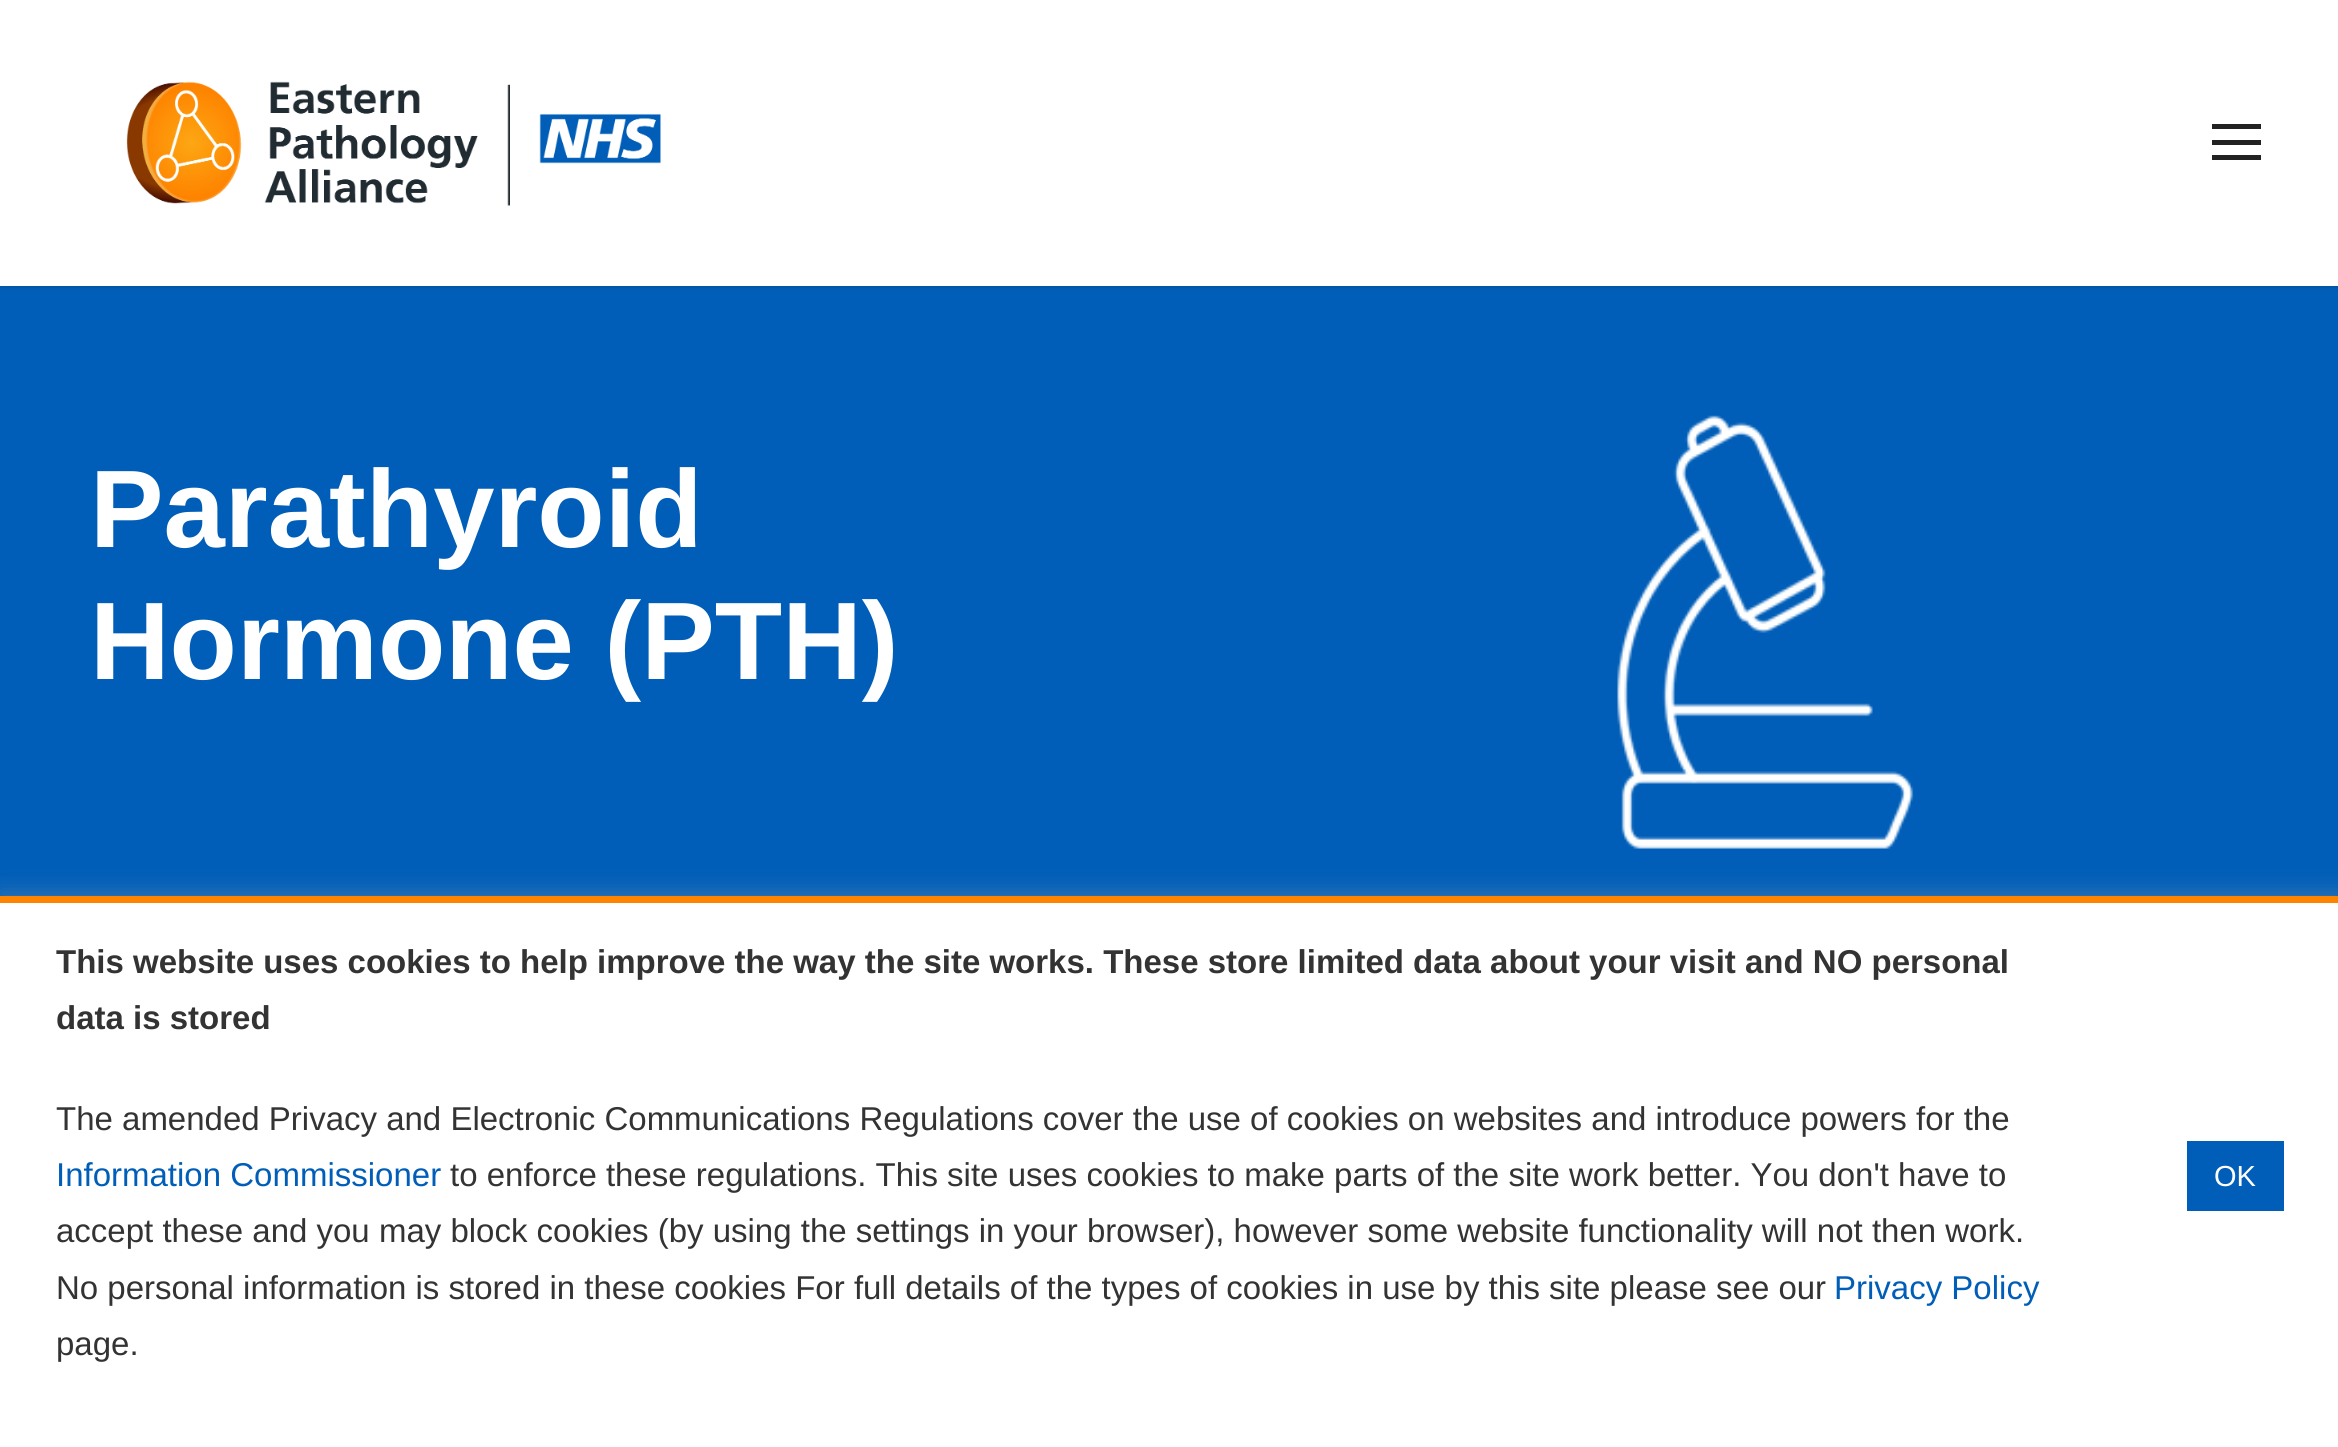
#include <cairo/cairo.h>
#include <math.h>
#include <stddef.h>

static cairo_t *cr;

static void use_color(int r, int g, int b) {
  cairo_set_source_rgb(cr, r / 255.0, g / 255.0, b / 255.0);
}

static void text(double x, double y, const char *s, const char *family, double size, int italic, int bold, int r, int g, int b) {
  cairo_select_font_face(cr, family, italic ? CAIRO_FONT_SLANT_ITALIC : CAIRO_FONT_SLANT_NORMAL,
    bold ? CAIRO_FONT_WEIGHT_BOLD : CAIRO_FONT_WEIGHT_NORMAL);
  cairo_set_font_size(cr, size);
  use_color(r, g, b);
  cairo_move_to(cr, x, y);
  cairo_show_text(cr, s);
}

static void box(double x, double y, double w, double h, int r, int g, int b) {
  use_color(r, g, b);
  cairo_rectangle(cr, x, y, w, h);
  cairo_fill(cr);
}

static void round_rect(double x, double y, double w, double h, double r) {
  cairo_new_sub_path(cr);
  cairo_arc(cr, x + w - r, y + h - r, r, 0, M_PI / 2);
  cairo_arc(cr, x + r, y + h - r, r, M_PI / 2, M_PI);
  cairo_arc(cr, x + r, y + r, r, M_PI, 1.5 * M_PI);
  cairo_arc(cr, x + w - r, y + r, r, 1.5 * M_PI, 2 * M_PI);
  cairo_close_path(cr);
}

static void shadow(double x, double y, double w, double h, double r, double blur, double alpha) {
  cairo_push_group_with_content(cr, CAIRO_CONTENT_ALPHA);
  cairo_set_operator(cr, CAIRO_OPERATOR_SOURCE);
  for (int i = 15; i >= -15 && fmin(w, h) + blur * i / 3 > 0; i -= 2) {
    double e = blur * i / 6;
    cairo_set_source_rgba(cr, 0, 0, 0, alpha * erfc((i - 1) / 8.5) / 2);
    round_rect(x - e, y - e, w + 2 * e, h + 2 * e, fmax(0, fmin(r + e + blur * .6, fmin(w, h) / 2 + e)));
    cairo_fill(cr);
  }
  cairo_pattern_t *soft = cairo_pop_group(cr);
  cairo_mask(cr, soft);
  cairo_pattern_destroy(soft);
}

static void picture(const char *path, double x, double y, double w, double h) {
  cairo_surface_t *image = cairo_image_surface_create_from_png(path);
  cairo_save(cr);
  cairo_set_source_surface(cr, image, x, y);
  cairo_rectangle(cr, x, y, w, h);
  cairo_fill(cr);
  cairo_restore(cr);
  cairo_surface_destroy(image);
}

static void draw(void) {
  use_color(0, 94, 184);
  cairo_paint(cr);
  use_color(0, 0, 0);
  shadow(0, 2, 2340, 286, 0, 2, 0.1);
  box(0, 0, 2338, 286, 255, 255, 255);
  picture("img_01.png", 126, 81, 535, 125);
  box(2212, 124, 49, 5, 34, 34, 34);
  box(2212, 140, 49, 5, 34, 34, 34);
  box(2212, 155, 49, 5, 34, 34, 34);
  picture("img_02.png", 1617, 415, 297, 434);
  use_color(172, 171, 171);
  shadow(0, 893, 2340, 554, 0, 11, 0.3);
  box(0, 903, 2338, 544, 255, 255, 255);
  box(0, 896, 2338, 7, 254, 132, 0);
  box(2187, 1141, 97, 70, 0, 94, 184);
  text(90, 547, "Parathyroid", "Liberation Sans", 110.25, 0, 1, 255, 255, 255);
  text(90, 679, "Hormone (PTH)", "Liberation Sans", 110.25, 0, 1, 255, 255, 255);
  text(56, 973, "This website uses cookies to help improve the way the site works. These store limited data about your visit and NO personal", "Liberation Sans", 33, 0, 1, 51, 51, 51);
  text(56, 1029, "data is stored", "Liberation Sans", 33, 0, 1, 51, 51, 51);
  text(56, 1130, "The amended Privacy and Electronic Communications Regulations cover the use of cookies on websites and introduce powers for the", "Liberation Sans", 33, 0, 0, 51, 51, 51);
  text(56, 1186, "Information Commissioner", "Liberation Sans", 33, 0, 0, 0, 94, 184);
  text(450, 1186, "to enforce these regulations. This site uses cookies to make parts of the site work better. You don't have to", "Liberation Sans", 33, 0, 0, 51, 51, 51);
  text(56, 1242, "accept these and you may block cookies (by using the settings in your browser), however some website functionality will not then work.", "Liberation Sans", 33, 0, 0, 51, 51, 51);
  text(56, 1299, "No personal information is stored in these cookies For full details of the types of cookies in use by this site please see our", "Liberation Sans", 33, 0, 0, 51, 51, 51);
  text(1834, 1299, "Privacy Policy", "Liberation Sans", 33, 0, 0, 0, 94, 184);
  text(56, 1355, "page.", "Liberation Sans", 33, 0, 0, 51, 51, 51);
  text(2214, 1186, "OK", "Liberation Sans", 29, 0, 0, 255, 255, 255);
}

int main(void) {
  cairo_surface_t *surface = cairo_image_surface_create(CAIRO_FORMAT_RGB24, 2338, 1447);
  cr = cairo_create(surface);
  cairo_font_options_t *options = cairo_font_options_create();
  cairo_font_options_set_hint_metrics(options, CAIRO_HINT_METRICS_OFF);
  cairo_font_options_set_hint_style(options, CAIRO_HINT_STYLE_NONE);
  cairo_set_font_options(cr, options);
  cairo_set_miter_limit(cr, 4);
  draw();
  cairo_surface_write_to_png(surface, "out.png");
  cairo_font_options_destroy(options);
  cairo_destroy(cr);
  cairo_surface_destroy(surface);
  return 0;
}
